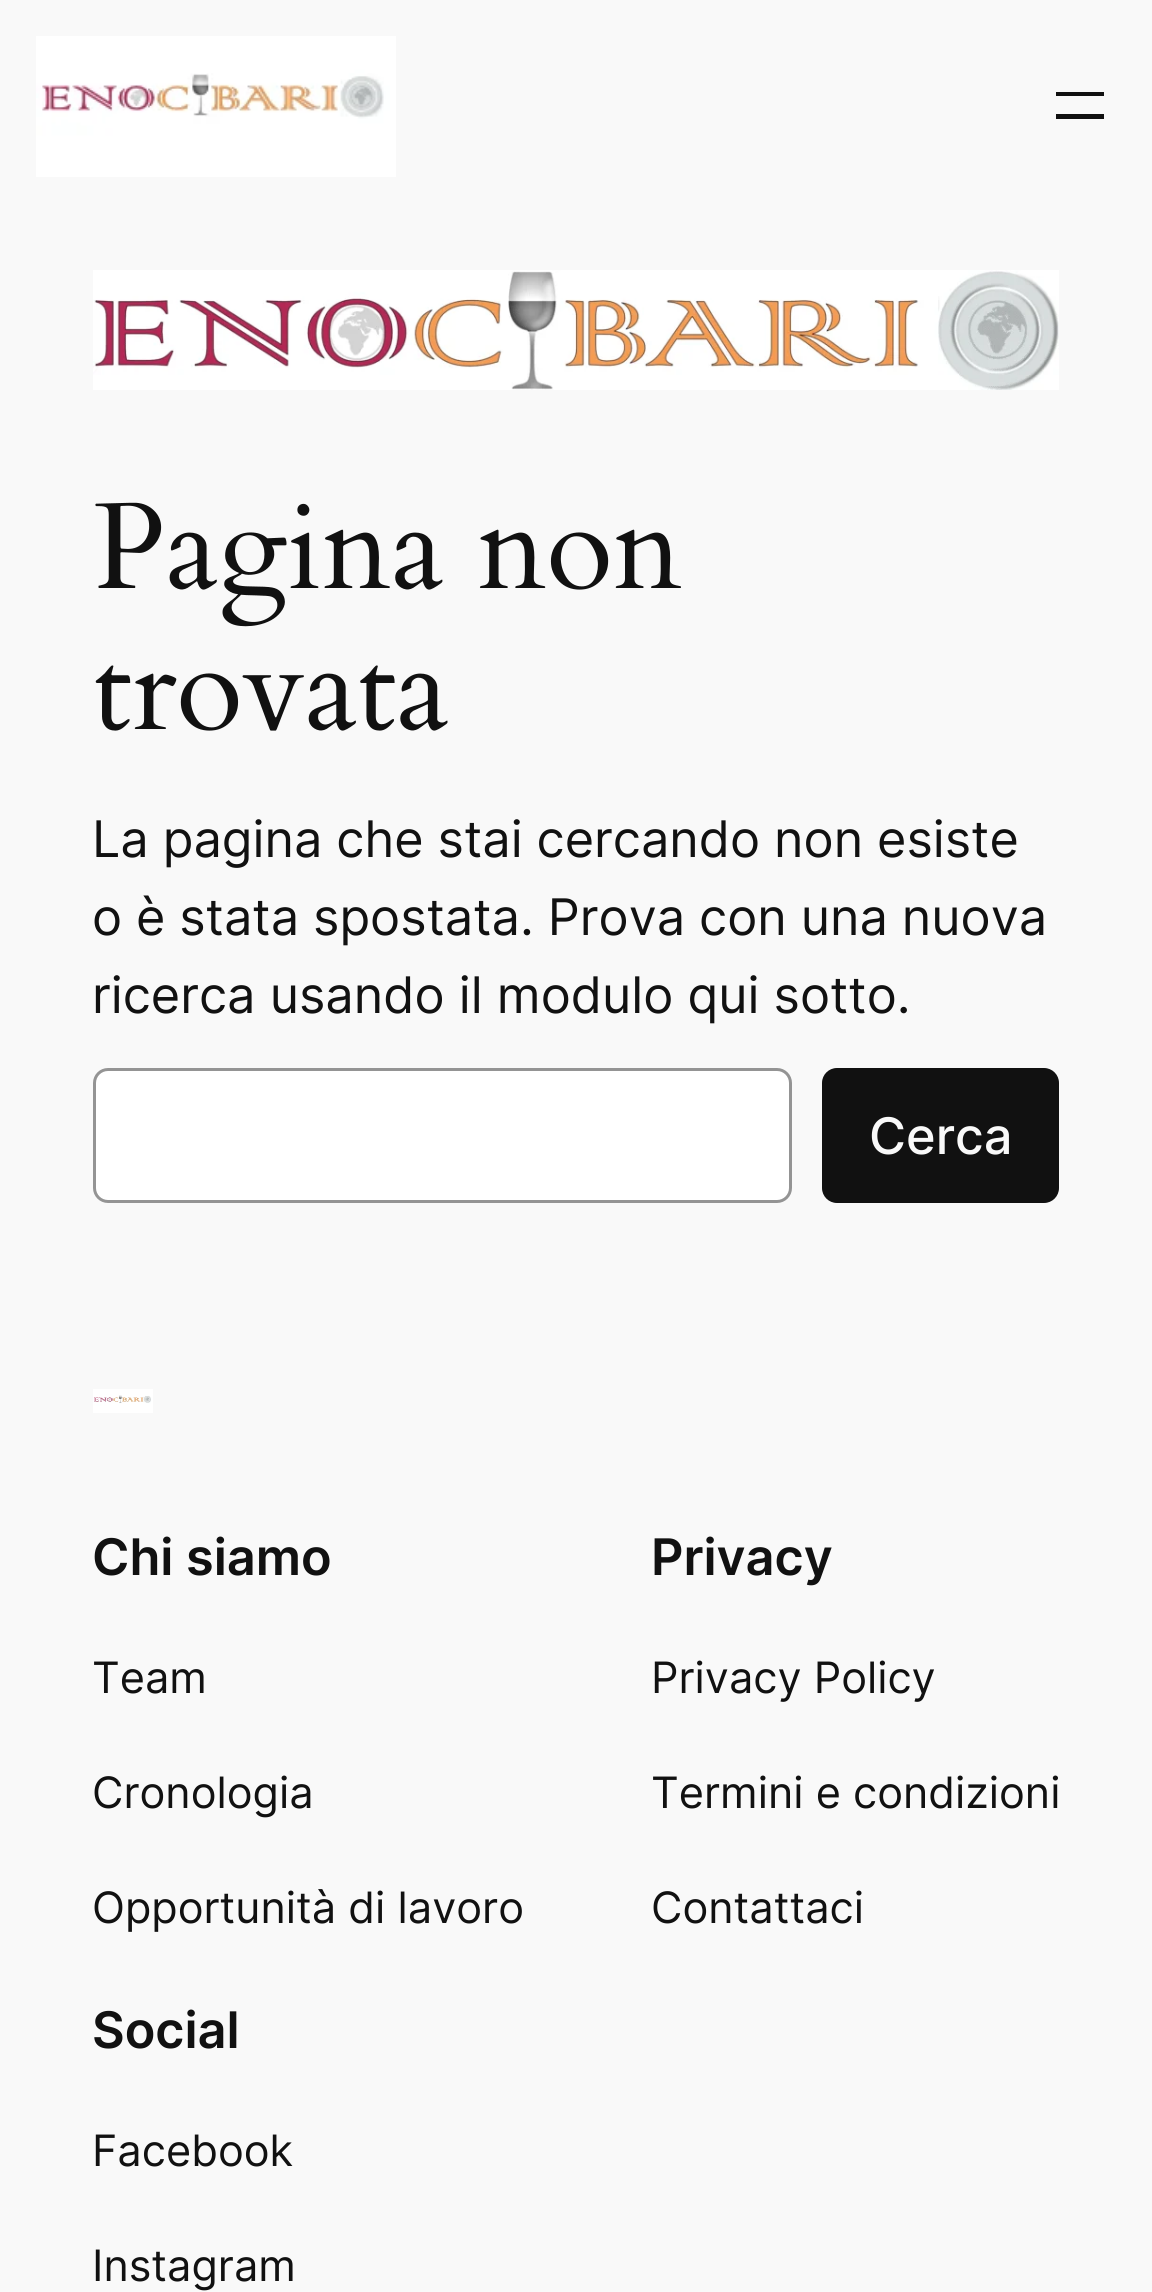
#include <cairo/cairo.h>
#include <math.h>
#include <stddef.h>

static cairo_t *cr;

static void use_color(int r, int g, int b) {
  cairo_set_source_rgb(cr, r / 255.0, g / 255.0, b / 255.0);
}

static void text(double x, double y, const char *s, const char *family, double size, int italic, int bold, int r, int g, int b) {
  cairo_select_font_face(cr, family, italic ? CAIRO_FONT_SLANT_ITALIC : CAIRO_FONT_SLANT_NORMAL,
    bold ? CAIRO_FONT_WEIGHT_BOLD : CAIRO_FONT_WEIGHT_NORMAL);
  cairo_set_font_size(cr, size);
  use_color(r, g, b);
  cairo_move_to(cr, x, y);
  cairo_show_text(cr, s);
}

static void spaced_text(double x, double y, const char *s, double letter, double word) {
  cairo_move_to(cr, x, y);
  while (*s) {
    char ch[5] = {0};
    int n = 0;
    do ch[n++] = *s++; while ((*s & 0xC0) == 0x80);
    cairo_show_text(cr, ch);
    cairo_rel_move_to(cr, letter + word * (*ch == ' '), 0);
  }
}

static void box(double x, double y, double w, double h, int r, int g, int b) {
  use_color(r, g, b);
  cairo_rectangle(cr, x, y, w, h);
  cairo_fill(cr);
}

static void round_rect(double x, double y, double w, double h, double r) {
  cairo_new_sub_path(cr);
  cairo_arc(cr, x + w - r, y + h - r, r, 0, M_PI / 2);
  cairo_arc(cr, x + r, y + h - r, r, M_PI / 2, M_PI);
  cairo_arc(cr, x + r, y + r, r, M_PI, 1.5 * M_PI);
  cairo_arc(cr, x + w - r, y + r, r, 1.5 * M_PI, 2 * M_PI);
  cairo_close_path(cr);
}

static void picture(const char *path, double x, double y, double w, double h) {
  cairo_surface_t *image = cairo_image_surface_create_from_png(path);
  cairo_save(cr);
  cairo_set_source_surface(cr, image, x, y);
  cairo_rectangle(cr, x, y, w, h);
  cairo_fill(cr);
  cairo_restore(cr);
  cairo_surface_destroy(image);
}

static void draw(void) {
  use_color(249, 249, 249);
  cairo_paint(cr);
  picture("img_01.png", 36, 36, 360, 141);
  box(1056, 92, 48, 4, 17, 17, 17);
  box(1056, 114, 48, 5, 17, 17, 17);
  picture("img_02.png", 93, 270, 966, 120);
  picture("img_03.png", 95, 502, 586, 125);
  picture("img_04.png", 95, 665, 353, 66);
  use_color(255, 255, 255);
  round_rect(94.5, 1069.5, 696, 132, 13.5);
  cairo_fill_preserve(cr);
  use_color(148, 148, 148);
  cairo_set_line_width(cr, 3);
  cairo_stroke(cr);
  use_color(17, 17, 17);
  round_rect(822, 1068, 237, 135, 15);
  cairo_fill(cr);
  picture("img_05.png", 93, 1389, 60, 24);
  cairo_select_font_face(cr, "Inter", CAIRO_FONT_SLANT_NORMAL, CAIRO_FONT_WEIGHT_NORMAL);
  cairo_set_font_size(cr, 50.4);
  spaced_text(92, 857, "La pagina che stai cercando non esiste", 0, -0.25);
  spaced_text(92, 935, "o è stata spostata. Prova con una nuova", 0, -0.25);
  text(92, 1013, "ricerca usando il modulo qui sotto.", "Inter", 50.4, 0, 0, 17, 17, 17);
  text(869, 1154, "Cerca", "Inter Medium", 50.4, 0, 0, 249, 249, 249);
  text(92, 1575, "Chi siamo", "Inter SemiBold", 50.4, 0, 0, 17, 17, 17);
  text(92, 1693, "Team", "Inter", 43.25, 0, 0, 17, 17, 17);
  text(92, 1808, "Cronologia", "Inter", 43.25, 0, 0, 17, 17, 17);
  text(92, 1923, "Opportunità di lavoro", "Inter", 43.25, 0, 0, 17, 17, 17);
  text(651, 1575, "Privacy", "Inter SemiBold", 50.4, 0, 0, 17, 17, 17);
  text(651, 1693, "Privacy Policy", "Inter", 43.25, 0, 0, 17, 17, 17);
  text(651, 1808, "Termini e condizioni", "Inter", 43.25, 0, 0, 17, 17, 17);
  text(651, 1923, "Contattaci", "Inter", 43.25, 0, 0, 17, 17, 17);
  text(92, 2048, "Social", "Inter SemiBold", 50.4, 0, 0, 17, 17, 17);
  text(92, 2166, "Facebook", "Inter", 43.25, 0, 0, 17, 17, 17);
  text(92, 2281, "Instagram", "Inter", 43.25, 0, 0, 17, 17, 17);
}

int main(void) {
  cairo_surface_t *surface = cairo_image_surface_create(CAIRO_FORMAT_RGB24, 1152, 2292);
  cr = cairo_create(surface);
  cairo_font_options_t *options = cairo_font_options_create();
  cairo_font_options_set_hint_metrics(options, CAIRO_HINT_METRICS_OFF);
  cairo_font_options_set_hint_style(options, CAIRO_HINT_STYLE_NONE);
  cairo_set_font_options(cr, options);
  cairo_set_miter_limit(cr, 4);
  draw();
  cairo_surface_write_to_png(surface, "out.png");
  cairo_font_options_destroy(options);
  cairo_destroy(cr);
  cairo_surface_destroy(surface);
  return 0;
}
